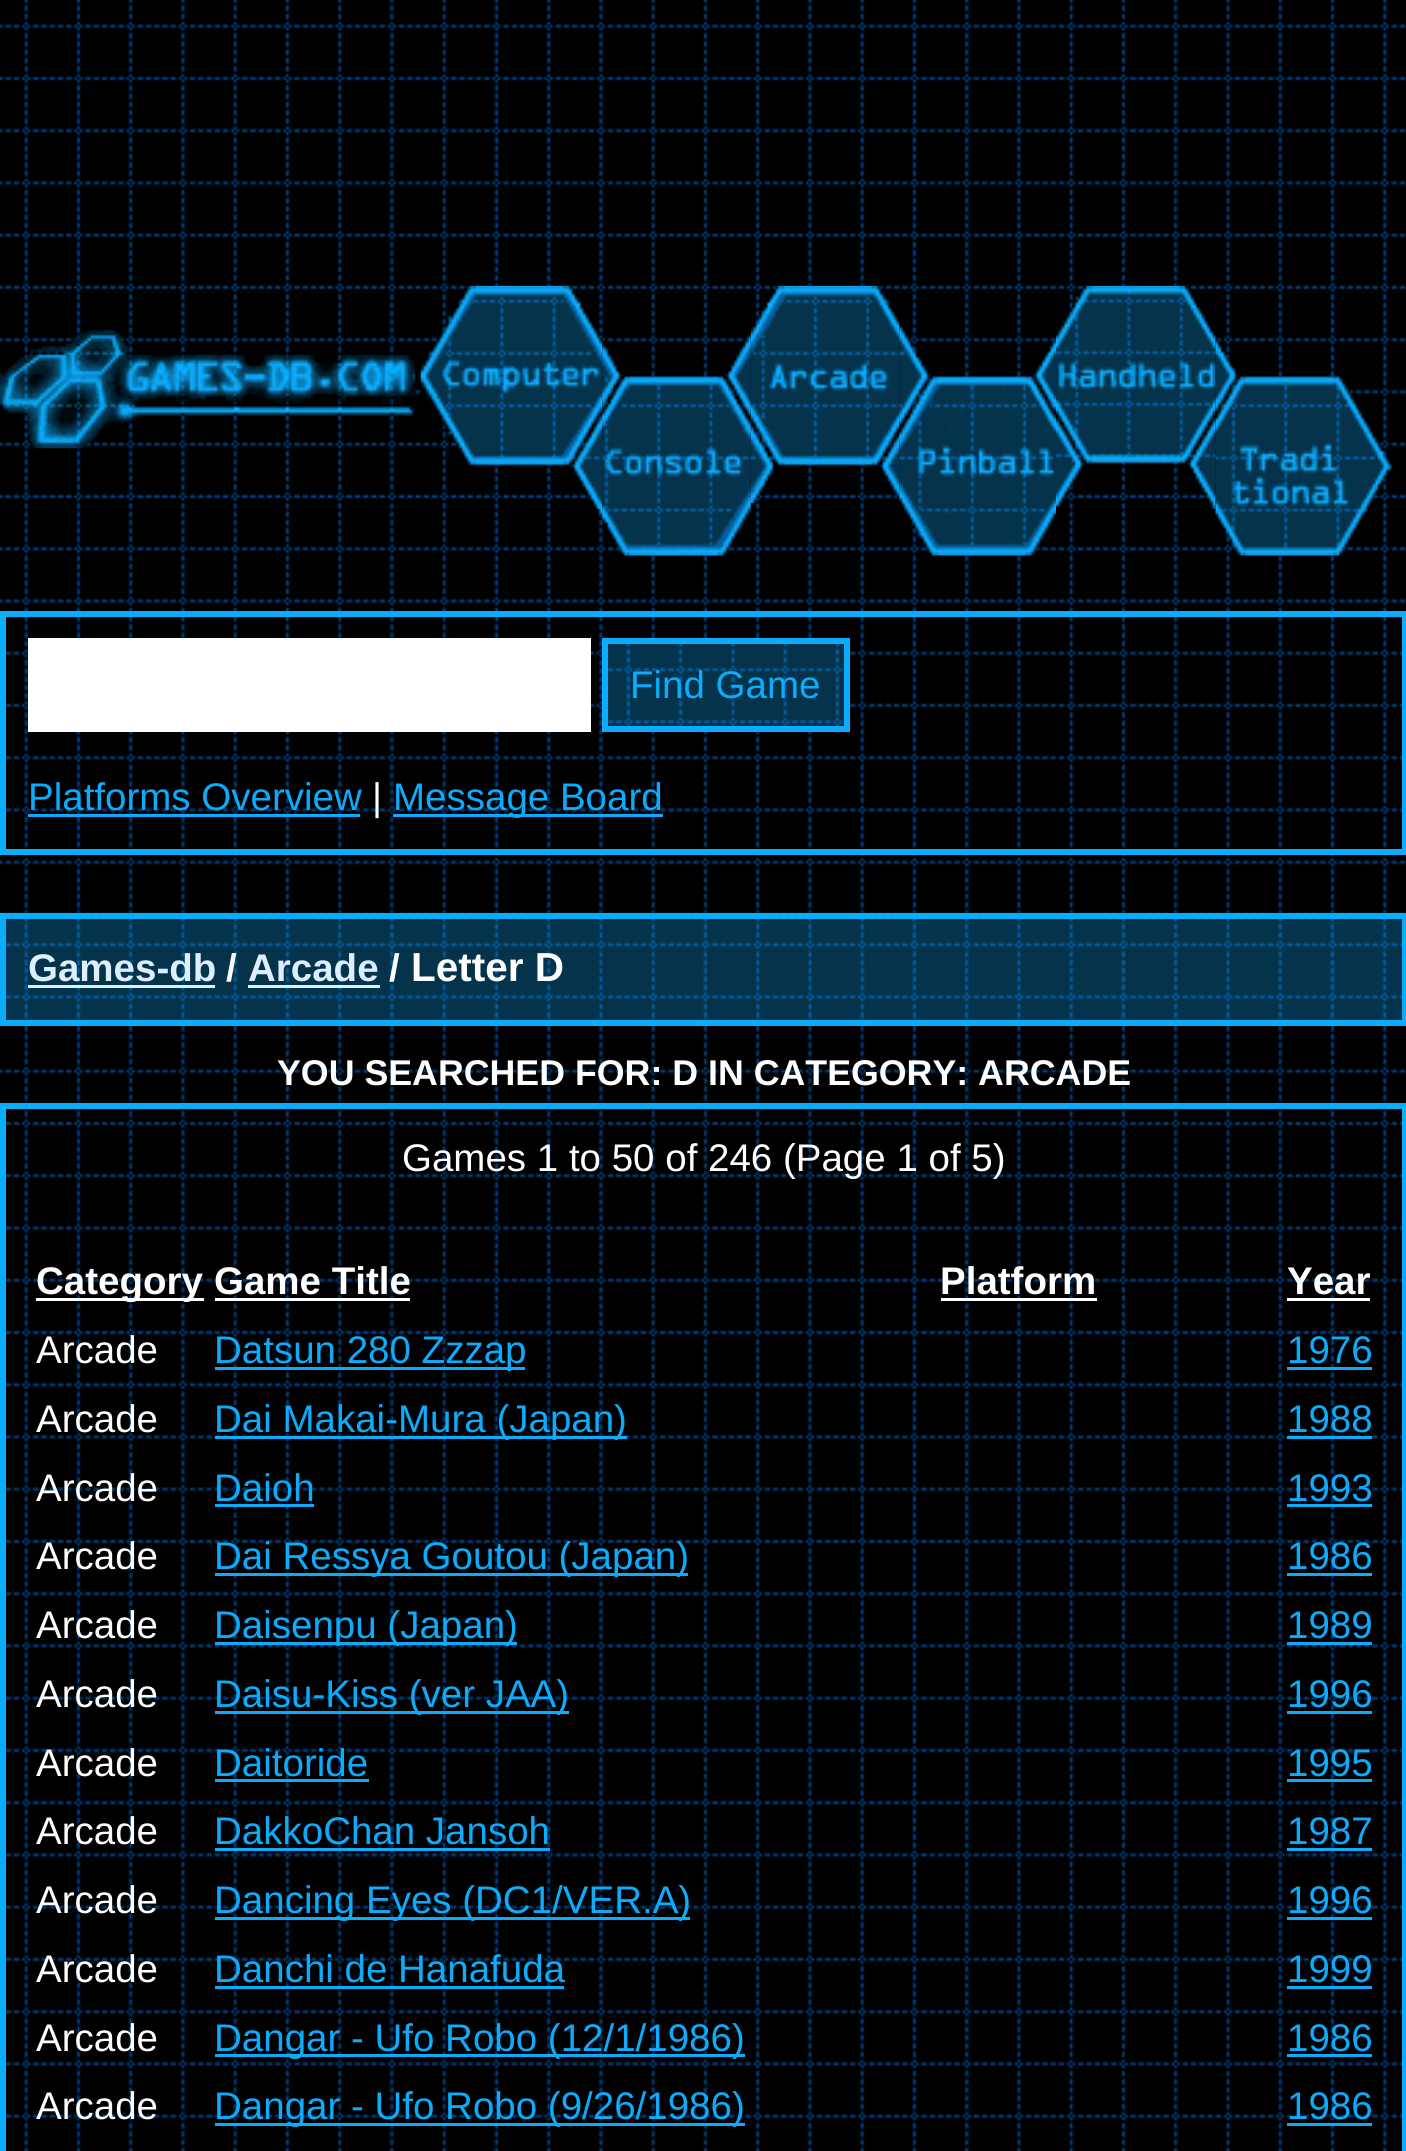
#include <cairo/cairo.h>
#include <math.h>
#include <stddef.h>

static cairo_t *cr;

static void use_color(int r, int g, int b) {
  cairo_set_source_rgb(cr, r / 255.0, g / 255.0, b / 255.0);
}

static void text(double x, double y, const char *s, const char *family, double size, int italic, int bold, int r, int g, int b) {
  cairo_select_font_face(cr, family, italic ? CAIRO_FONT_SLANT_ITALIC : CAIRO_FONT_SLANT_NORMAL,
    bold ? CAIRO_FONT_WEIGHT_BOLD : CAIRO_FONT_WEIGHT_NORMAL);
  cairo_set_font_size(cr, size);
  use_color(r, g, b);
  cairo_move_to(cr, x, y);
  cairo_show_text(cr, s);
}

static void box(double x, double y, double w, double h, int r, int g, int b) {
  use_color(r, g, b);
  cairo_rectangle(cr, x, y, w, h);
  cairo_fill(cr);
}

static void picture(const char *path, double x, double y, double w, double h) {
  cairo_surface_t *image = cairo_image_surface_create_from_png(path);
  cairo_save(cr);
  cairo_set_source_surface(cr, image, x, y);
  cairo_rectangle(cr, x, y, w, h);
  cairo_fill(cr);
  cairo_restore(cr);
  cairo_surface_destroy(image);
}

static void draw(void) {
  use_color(255, 255, 255);
  cairo_paint(cr);
  picture("img_01.png", 0, 0, 1406, 2151);
  picture("img_02.png", 0, 329, 416, 120);
  picture("img_03.png", 420, 286, 183, 231);
  picture("img_04.png", 602, 334, 149, 222);
  picture("img_05.png", 750, 286, 150, 218);
  picture("img_06.png", 899, 326, 157, 230);
  picture("img_07.png", 1056, 286, 160, 223);
  picture("img_08.png", 1215, 337, 177, 219);
  cairo_rectangle(cr, 3, 614, 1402, 238);
  use_color(12, 172, 252);
  cairo_set_line_width(cr, 6);
  cairo_stroke(cr);
  box(28, 638, 563, 94, 255, 255, 255);
  picture("img_09.png", 608, 644, 236, 82);
  cairo_rectangle(cr, 605, 641, 242, 88);
  use_color(12, 172, 252);
  cairo_stroke(cr);
  box(28, 814, 332, 3, 12, 172, 252);
  box(393, 814, 270, 3, 12, 172, 252);
  picture("img_10.png", 6, 919, 1396, 101);
  cairo_rectangle(cr, 3, 916, 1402, 107);
  cairo_stroke(cr);
  box(28, 985, 187, 3, 221, 238, 255);
  box(248, 985, 132, 3, 221, 238, 255);
  cairo_rectangle(cr, 3, 1106, 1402, 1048);
  use_color(12, 172, 252);
  cairo_stroke(cr);
  box(36, 1298, 168, 3, 255, 255, 255);
  box(215, 1298, 195, 3, 255, 255, 255);
  box(941, 1298, 156, 3, 255, 255, 255);
  box(1287, 1298, 83, 3, 255, 255, 255);
  box(215, 1367, 310, 3, 12, 172, 252);
  box(1287, 1367, 85, 3, 12, 172, 252);
  box(215, 1436, 412, 3, 12, 172, 252);
  box(1287, 1436, 85, 3, 12, 172, 252);
  box(215, 1504, 99, 3, 12, 172, 252);
  box(1287, 1504, 85, 3, 12, 172, 252);
  box(215, 1573, 473, 3, 12, 172, 252);
  box(1287, 1573, 85, 3, 12, 172, 252);
  box(215, 1642, 302, 3, 12, 172, 252);
  box(1287, 1642, 85, 3, 12, 172, 252);
  box(215, 1711, 354, 3, 12, 172, 252);
  box(1287, 1711, 85, 3, 12, 172, 252);
  box(215, 1779, 154, 3, 12, 172, 252);
  box(1287, 1779, 85, 3, 12, 172, 252);
  box(215, 1848, 335, 3, 12, 172, 252);
  box(1287, 1848, 85, 3, 12, 172, 252);
  box(215, 1917, 475, 3, 12, 172, 252);
  box(1287, 1917, 85, 3, 12, 172, 252);
  box(215, 1986, 349, 3, 12, 172, 252);
  box(1287, 1986, 85, 3, 12, 172, 252);
  box(215, 2054, 530, 3, 12, 172, 252);
  box(1287, 2054, 85, 3, 12, 172, 252);
  box(215, 2123, 530, 3, 12, 172, 252);
  box(1287, 2123, 85, 3, 12, 172, 252);
  text(630, 698, "Find Game", "Liberation Sans", 38.5, 0, 0, 12, 172, 252);
  text(28, 810, "Platforms Overview", "Liberation Sans", 38.5, 0, 0, 12, 172, 252);
  text(372, 810, "|", "Liberation Sans", 38.5, 0, 0, 255, 255, 255);
  text(393, 810, "Message Board", "Liberation Sans", 38.5, 0, 0, 12, 172, 252);
  text(28, 981, "Games-db", "Liberation Sans", 38.5, 0, 1, 221, 238, 255);
  text(226, 981, "/", "Liberation Sans", 38.5, 0, 1, 255, 255, 255);
  text(248, 981, "Arcade", "Liberation Sans", 38.5, 0, 1, 221, 238, 255);
  text(389, 981, "/", "Liberation Sans", 38.5, 0, 1, 255, 255, 255);
  text(411, 981, "Letter D", "Liberation Sans", 40.5, 0, 1, 255, 255, 255);
  text(277, 1085, "YOU SEARCHED FOR: D IN CATEGORY: ARCADE", "Liberation Sans", 35.75, 0, 1, 255, 255, 255);
  text(402, 1171, "Games 1 to 50 of 246 (Page 1 of 5)", "Liberation Sans", 38.5, 0, 0, 255, 255, 255);
  text(36, 1294, "Category", "Liberation Sans", 38.5, 0, 1, 255, 255, 255);
  text(214, 1294, "Game Title", "Liberation Sans", 38.5, 0, 1, 255, 255, 255);
  text(940, 1294, "Platform", "Liberation Sans", 38.5, 0, 1, 255, 255, 255);
  text(1287, 1294, "Year", "Liberation Sans", 38.5, 0, 1, 255, 255, 255);
  text(36, 1363, "Arcade", "Liberation Sans", 38.5, 0, 0, 255, 255, 255);
  text(214, 1363, "Datsun 280 Zzzap", "Liberation Sans", 38.5, 0, 0, 12, 172, 252);
  text(1287, 1363, "1976", "Liberation Sans", 38.5, 0, 0, 12, 172, 252);
  text(36, 1432, "Arcade", "Liberation Sans", 38.5, 0, 0, 255, 255, 255);
  text(214, 1432, "Dai Makai-Mura (Japan)", "Liberation Sans", 38.5, 0, 0, 12, 172, 252);
  text(1287, 1432, "1988", "Liberation Sans", 38.5, 0, 0, 12, 172, 252);
  text(36, 1501, "Arcade", "Liberation Sans", 38.5, 0, 0, 255, 255, 255);
  text(214, 1501, "Daioh", "Liberation Sans", 38.5, 0, 0, 12, 172, 252);
  text(1287, 1501, "1993", "Liberation Sans", 38.5, 0, 0, 12, 172, 252);
  text(36, 1569, "Arcade", "Liberation Sans", 38.5, 0, 0, 255, 255, 255);
  text(214, 1569, "Dai Ressya Goutou (Japan)", "Liberation Sans", 38.5, 0, 0, 12, 172, 252);
  text(1287, 1569, "1986", "Liberation Sans", 38.5, 0, 0, 12, 172, 252);
  text(36, 1638, "Arcade", "Liberation Sans", 38.5, 0, 0, 255, 255, 255);
  text(214, 1638, "Daisenpu (Japan)", "Liberation Sans", 38.5, 0, 0, 12, 172, 252);
  text(1287, 1638, "1989", "Liberation Sans", 38.5, 0, 0, 12, 172, 252);
  text(36, 1707, "Arcade", "Liberation Sans", 38.5, 0, 0, 255, 255, 255);
  text(214, 1707, "Daisu-Kiss (ver JAA)", "Liberation Sans", 38.5, 0, 0, 12, 172, 252);
  text(1287, 1707, "1996", "Liberation Sans", 38.5, 0, 0, 12, 172, 252);
  text(36, 1776, "Arcade", "Liberation Sans", 38.5, 0, 0, 255, 255, 255);
  text(214, 1776, "Daitoride", "Liberation Sans", 38.5, 0, 0, 12, 172, 252);
  text(1287, 1776, "1995", "Liberation Sans", 38.5, 0, 0, 12, 172, 252);
  text(36, 1844, "Arcade", "Liberation Sans", 38.5, 0, 0, 255, 255, 255);
  text(214, 1844, "DakkoChan Jansoh", "Liberation Sans", 38.5, 0, 0, 12, 172, 252);
  text(1287, 1844, "1987", "Liberation Sans", 38.5, 0, 0, 12, 172, 252);
  text(36, 1913, "Arcade", "Liberation Sans", 38.5, 0, 0, 255, 255, 255);
  text(214, 1913, "Dancing Eyes (DC1/VER.A)", "Liberation Sans", 38.5, 0, 0, 12, 172, 252);
  text(1287, 1913, "1996", "Liberation Sans", 38.5, 0, 0, 12, 172, 252);
  text(36, 1982, "Arcade", "Liberation Sans", 38.5, 0, 0, 255, 255, 255);
  text(214, 1982, "Danchi de Hanafuda", "Liberation Sans", 38.5, 0, 0, 12, 172, 252);
  text(1287, 1982, "1999", "Liberation Sans", 38.5, 0, 0, 12, 172, 252);
  text(36, 2051, "Arcade", "Liberation Sans", 38.5, 0, 0, 255, 255, 255);
  text(214, 2051, "Dangar - Ufo Robo (12/1/1986)", "Liberation Sans", 38.5, 0, 0, 12, 172, 252);
  text(1287, 2051, "1986", "Liberation Sans", 38.5, 0, 0, 12, 172, 252);
  text(36, 2119, "Arcade", "Liberation Sans", 38.5, 0, 0, 255, 255, 255);
  text(214, 2119, "Dangar - Ufo Robo (9/26/1986)", "Liberation Sans", 38.5, 0, 0, 12, 172, 252);
  text(1287, 2119, "1986", "Liberation Sans", 38.5, 0, 0, 12, 172, 252);
}

int main(void) {
  cairo_surface_t *surface = cairo_image_surface_create(CAIRO_FORMAT_RGB24, 1406, 2151);
  cr = cairo_create(surface);
  cairo_font_options_t *options = cairo_font_options_create();
  cairo_font_options_set_hint_metrics(options, CAIRO_HINT_METRICS_OFF);
  cairo_font_options_set_hint_style(options, CAIRO_HINT_STYLE_NONE);
  cairo_set_font_options(cr, options);
  cairo_set_miter_limit(cr, 4);
  draw();
  cairo_surface_write_to_png(surface, "out.png");
  cairo_font_options_destroy(options);
  cairo_destroy(cr);
  cairo_surface_destroy(surface);
  return 0;
}
